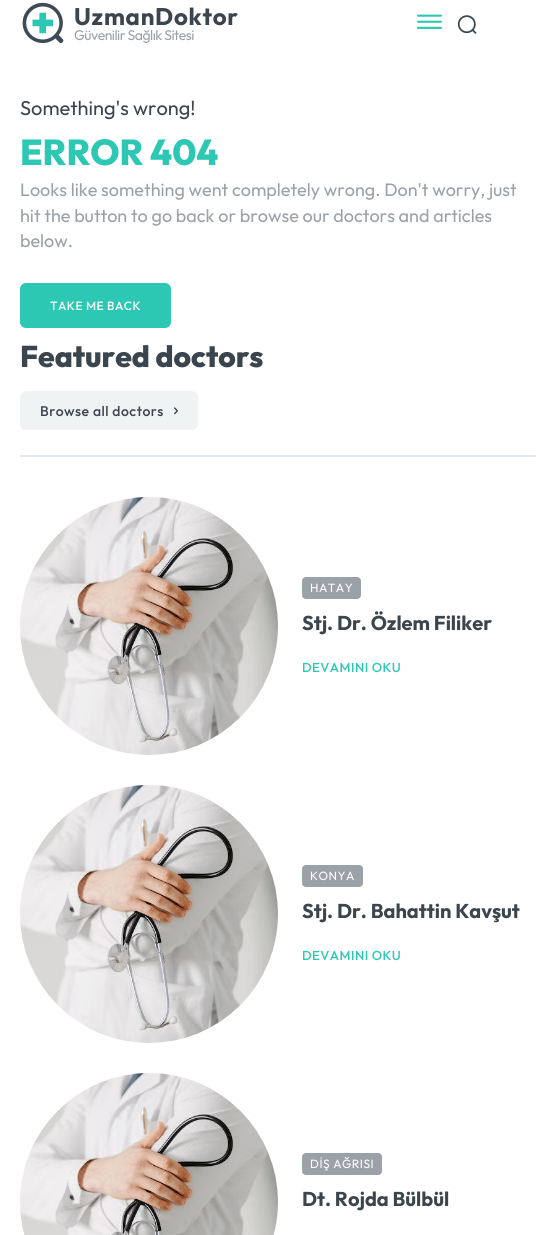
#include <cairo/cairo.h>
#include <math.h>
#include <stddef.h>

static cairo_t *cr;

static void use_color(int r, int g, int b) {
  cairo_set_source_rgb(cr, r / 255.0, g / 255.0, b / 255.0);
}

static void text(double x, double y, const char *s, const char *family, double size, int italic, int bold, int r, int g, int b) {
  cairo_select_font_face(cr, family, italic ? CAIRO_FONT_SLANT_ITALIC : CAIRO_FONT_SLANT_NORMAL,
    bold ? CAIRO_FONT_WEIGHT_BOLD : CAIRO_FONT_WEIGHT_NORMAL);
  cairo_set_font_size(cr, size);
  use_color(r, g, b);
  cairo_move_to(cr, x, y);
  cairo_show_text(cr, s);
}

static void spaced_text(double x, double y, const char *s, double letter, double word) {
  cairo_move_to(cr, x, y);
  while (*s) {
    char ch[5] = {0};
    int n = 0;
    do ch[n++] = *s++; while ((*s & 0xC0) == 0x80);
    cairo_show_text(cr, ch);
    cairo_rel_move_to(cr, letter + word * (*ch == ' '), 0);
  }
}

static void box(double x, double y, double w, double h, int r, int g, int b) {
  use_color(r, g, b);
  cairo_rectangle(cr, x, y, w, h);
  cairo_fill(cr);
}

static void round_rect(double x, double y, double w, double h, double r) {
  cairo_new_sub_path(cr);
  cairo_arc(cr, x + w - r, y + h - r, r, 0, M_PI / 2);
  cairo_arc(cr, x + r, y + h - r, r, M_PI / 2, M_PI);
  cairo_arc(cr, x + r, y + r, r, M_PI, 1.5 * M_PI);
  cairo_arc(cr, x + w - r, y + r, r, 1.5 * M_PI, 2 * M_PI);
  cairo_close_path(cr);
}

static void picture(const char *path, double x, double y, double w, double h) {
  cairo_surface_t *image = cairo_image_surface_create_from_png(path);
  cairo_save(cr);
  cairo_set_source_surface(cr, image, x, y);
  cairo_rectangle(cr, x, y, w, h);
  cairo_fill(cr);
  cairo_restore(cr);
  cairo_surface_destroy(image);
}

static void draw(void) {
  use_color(255, 255, 255);
  cairo_paint(cr);
  picture("img_01.png", 22, 2, 42, 41);
  picture("img_02.png", 417, 14, 25, 15);
  picture("img_03.png", 457, 15, 20, 19);
  use_color(44, 200, 179);
  round_rect(20, 283, 151, 45, 6);
  cairo_fill(cr);
  box(20, 455, 516, 2, 227, 234, 237);
  use_color(239, 243, 244);
  round_rect(20, 391, 178, 39, 6);
  cairo_fill(cr);
  picture("img_04.png", 174, 407, 4, 8);
  picture("img_05.png", 20, 497, 258, 258);
  use_color(155, 161, 168);
  round_rect(302, 577, 59, 22, 4);
  cairo_fill(cr);
  picture("img_06.png", 20, 785, 258, 258);
  round_rect(302, 865, 61, 22, 4);
  cairo_fill(cr);
  picture("img_07.png", 20, 1073, 258, 162);
  round_rect(302, 1153, 80, 22, 4);
  cairo_fill(cr);
  cairo_select_font_face(cr, "Outfit", CAIRO_FONT_SLANT_NORMAL, CAIRO_FONT_WEIGHT_BOLD);
  cairo_set_font_size(cr, 24);
  use_color(58, 69, 78);
  spaced_text(74, 25, "UzmanDoktor", 0.75, 0);
  cairo_select_font_face(cr, "Outfit", CAIRO_FONT_SLANT_NORMAL, CAIRO_FONT_WEIGHT_NORMAL);
  cairo_set_font_size(cr, 14);
  use_color(155, 161, 168);
  spaced_text(74, 40, "Güvenilir Sağlık Sitesi", -0.5, 0);
  text(20, 115, "Something's wrong!", "Outfit", 20, 0, 0, 58, 69, 78);
  text(20, 165, "ERROR 404", "Outfit ExtraBold", 36, 0, 0, 44, 200, 179);
  text(20, 196, "Looks like something went completely wrong. Don't worry, just", "Outfit", 18, 0, 0, 155, 161, 168);
  text(20, 222, "hit the button to go back or browse our doctors and articles", "Outfit", 18, 0, 0, 155, 161, 168);
  text(20, 247, "below.", "Outfit", 18, 0, 0, 155, 161, 168);
  cairo_select_font_face(cr, "Outfit Medium", CAIRO_FONT_SLANT_NORMAL, CAIRO_FONT_WEIGHT_NORMAL);
  cairo_set_font_size(cr, 12);
  use_color(255, 255, 255);
  spaced_text(50, 310, "TAKE ME BACK", 0.5, 0);
  text(20, 367, "Featured doctors", "Outfit ExtraBold", 30, 0, 0, 58, 69, 78);
  cairo_select_font_face(cr, "Outfit Medium", CAIRO_FONT_SLANT_NORMAL, CAIRO_FONT_WEIGHT_NORMAL);
  cairo_set_font_size(cr, 14);
  spaced_text(40, 416, "Browse all doctors", 0.5, 0);
  cairo_select_font_face(cr, "Outfit", CAIRO_FONT_SLANT_NORMAL, CAIRO_FONT_WEIGHT_NORMAL);
  cairo_set_font_size(cr, 12);
  use_color(255, 255, 255);
  spaced_text(310, 592, "HATAY", 0.5, 0);
  text(302, 630, "Stj. Dr. Özlem Filiker", "Outfit", 20, 0, 1, 58, 69, 78);
  cairo_select_font_face(cr, "Outfit Medium", CAIRO_FONT_SLANT_NORMAL, CAIRO_FONT_WEIGHT_NORMAL);
  cairo_set_font_size(cr, 13);
  use_color(44, 200, 179);
  spaced_text(302, 672, "DEVAMINI OKU", 0.5, 0);
  cairo_select_font_face(cr, "Outfit", CAIRO_FONT_SLANT_NORMAL, CAIRO_FONT_WEIGHT_NORMAL);
  cairo_set_font_size(cr, 12);
  use_color(255, 255, 255);
  spaced_text(310, 880, "KONYA", 0.5, 0);
  text(302, 918, "Stj. Dr. Bahattin Kavşut", "Outfit", 20, 0, 1, 58, 69, 78);
  cairo_select_font_face(cr, "Outfit Medium", CAIRO_FONT_SLANT_NORMAL, CAIRO_FONT_WEIGHT_NORMAL);
  cairo_set_font_size(cr, 13);
  use_color(44, 200, 179);
  spaced_text(302, 960, "DEVAMINI OKU", 0.5, 0);
  cairo_select_font_face(cr, "Outfit", CAIRO_FONT_SLANT_NORMAL, CAIRO_FONT_WEIGHT_NORMAL);
  cairo_set_font_size(cr, 12);
  use_color(255, 255, 255);
  spaced_text(310, 1168, "DİŞ AĞRISI", 0.5, 0);
  text(302, 1206, "Dt. Rojda Bülbül", "Outfit", 20, 0, 1, 58, 69, 78);
}

int main(void) {
  cairo_surface_t *surface = cairo_image_surface_create(CAIRO_FORMAT_RGB24, 556, 1235);
  cr = cairo_create(surface);
  cairo_font_options_t *options = cairo_font_options_create();
  cairo_font_options_set_hint_metrics(options, CAIRO_HINT_METRICS_OFF);
  cairo_font_options_set_hint_style(options, CAIRO_HINT_STYLE_NONE);
  cairo_set_font_options(cr, options);
  cairo_set_miter_limit(cr, 4);
  draw();
  cairo_surface_write_to_png(surface, "out.png");
  cairo_font_options_destroy(options);
  cairo_destroy(cr);
  cairo_surface_destroy(surface);
  return 0;
}
